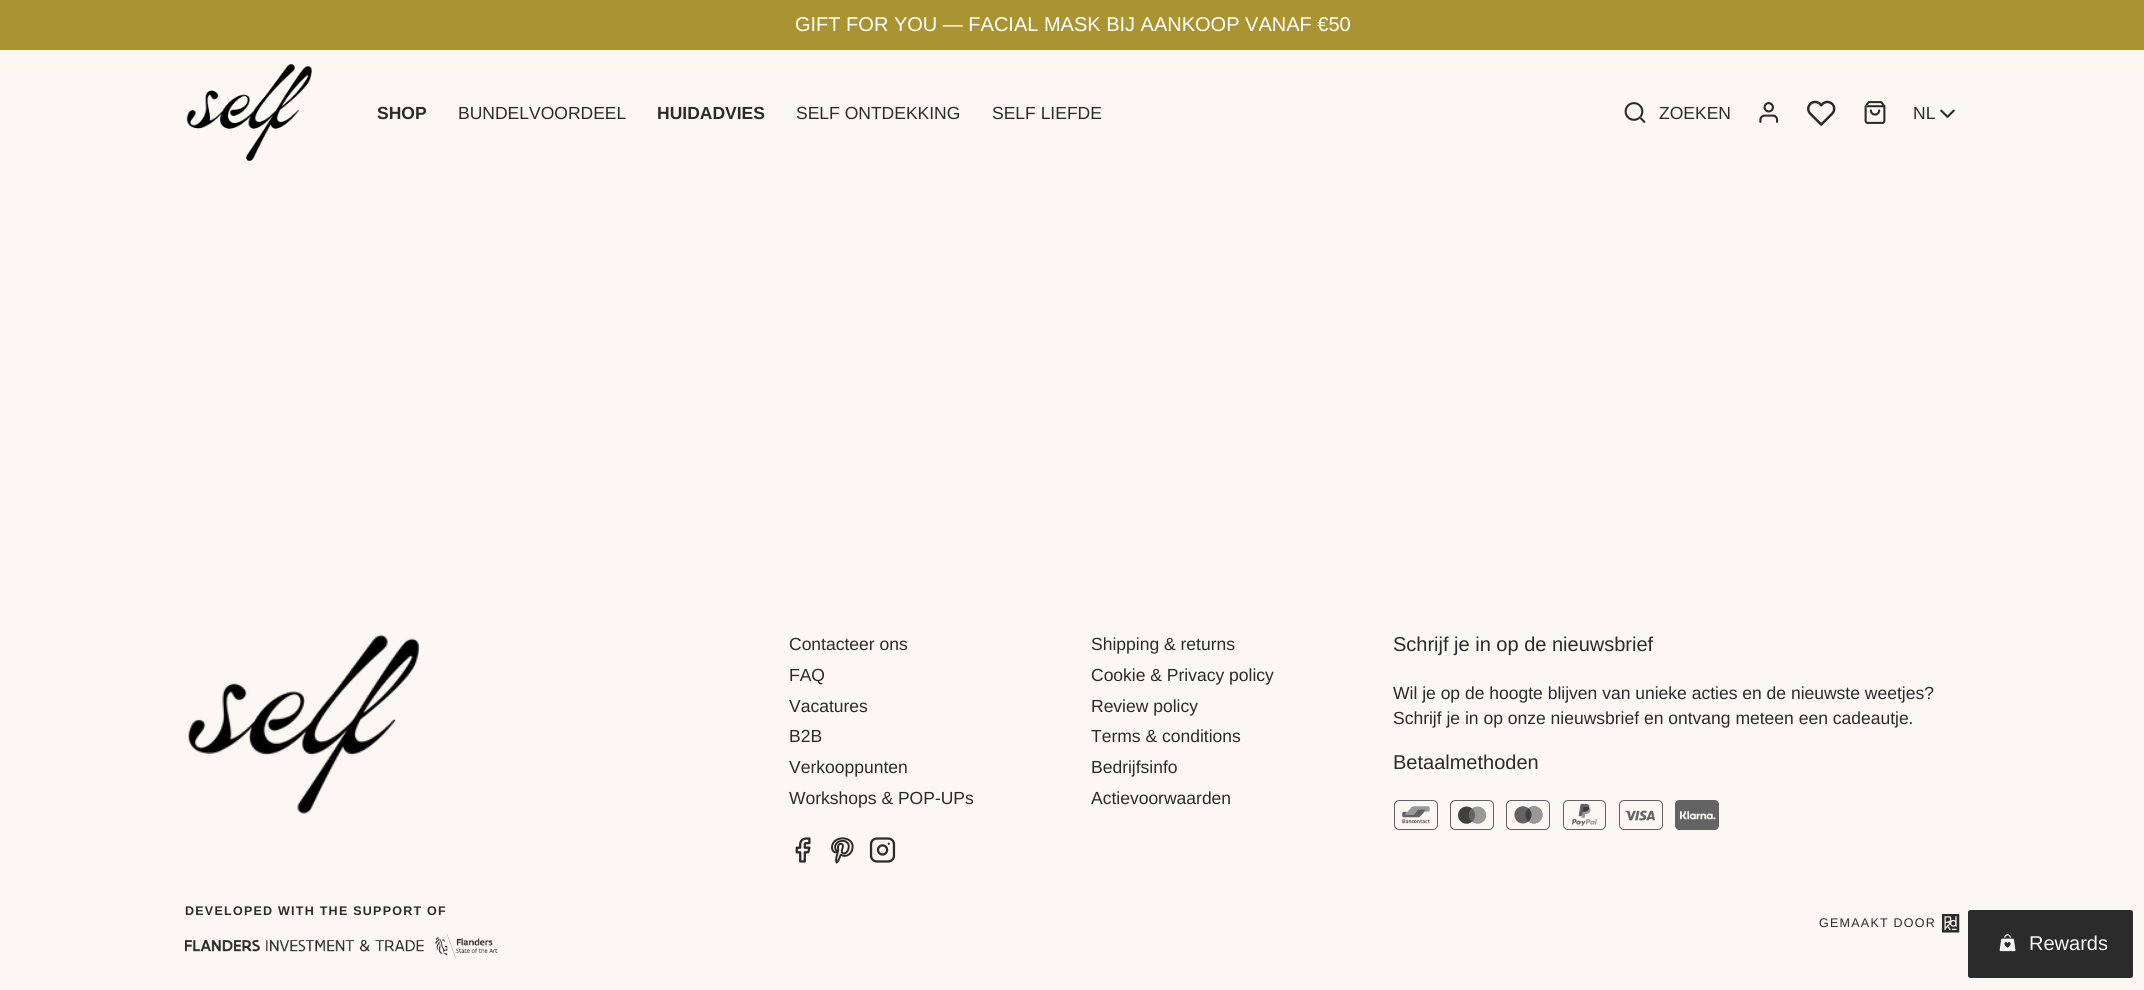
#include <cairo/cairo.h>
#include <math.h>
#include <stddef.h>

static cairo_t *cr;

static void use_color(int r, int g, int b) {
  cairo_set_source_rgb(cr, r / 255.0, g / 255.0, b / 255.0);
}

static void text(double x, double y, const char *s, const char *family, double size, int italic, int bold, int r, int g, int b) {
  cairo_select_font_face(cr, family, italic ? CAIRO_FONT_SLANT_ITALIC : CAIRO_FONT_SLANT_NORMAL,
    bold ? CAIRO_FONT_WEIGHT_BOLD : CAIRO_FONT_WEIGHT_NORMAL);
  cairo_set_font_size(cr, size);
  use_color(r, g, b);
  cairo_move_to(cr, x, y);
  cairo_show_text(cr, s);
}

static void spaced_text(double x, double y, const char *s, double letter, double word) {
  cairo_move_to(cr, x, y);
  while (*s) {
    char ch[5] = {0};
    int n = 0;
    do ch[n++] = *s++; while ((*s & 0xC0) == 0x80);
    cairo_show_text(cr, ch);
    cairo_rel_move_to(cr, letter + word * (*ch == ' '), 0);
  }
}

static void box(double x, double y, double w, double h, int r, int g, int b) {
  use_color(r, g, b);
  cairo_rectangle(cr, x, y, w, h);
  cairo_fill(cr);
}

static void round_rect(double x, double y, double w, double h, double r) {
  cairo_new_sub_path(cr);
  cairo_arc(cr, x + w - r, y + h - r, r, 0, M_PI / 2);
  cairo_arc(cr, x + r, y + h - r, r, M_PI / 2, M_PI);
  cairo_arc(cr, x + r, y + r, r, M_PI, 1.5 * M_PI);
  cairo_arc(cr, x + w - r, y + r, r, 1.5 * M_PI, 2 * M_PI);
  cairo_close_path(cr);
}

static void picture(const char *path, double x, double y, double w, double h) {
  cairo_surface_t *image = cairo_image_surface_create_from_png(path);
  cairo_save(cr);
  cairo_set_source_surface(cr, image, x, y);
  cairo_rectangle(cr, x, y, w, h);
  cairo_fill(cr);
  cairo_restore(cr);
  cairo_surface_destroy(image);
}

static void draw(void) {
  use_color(251, 248, 244);
  cairo_paint(cr);
  box(0, 0, 2144, 50, 170, 147, 49);
  picture("img_01.png", 186, 64, 126, 97);
  picture("img_02.png", 1624, 102, 22, 21);
  picture("img_03.png", 1759, 102, 20, 21);
  picture("img_04.png", 1807, 100, 29, 26);
  picture("img_05.png", 1864, 101, 22, 23);
  picture("img_06.png", 1940, 109, 15, 9);
  picture("img_07.png", 187, 634, 233, 180);
  picture("img_08.png", 795, 837, 16, 26);
  picture("img_09.png", 831, 837, 23, 27);
  picture("img_10.png", 869, 837, 27, 26);
  picture("img_11.png", 1394, 800, 44, 30);
  picture("img_12.png", 1450, 800, 44, 30);
  picture("img_13.png", 1506, 800, 44, 30);
  picture("img_14.png", 1563, 800, 43, 30);
  picture("img_15.png", 1619, 800, 44, 30);
  picture("img_16.png", 1675, 800, 44, 30);
  picture("img_17.png", 185, 933, 313, 26);
  picture("img_18.png", 1941, 914, 19, 19);
  use_color(43, 43, 43);
  round_rect(1968, 910, 165, 68, 2.5);
  cairo_fill(cr);
  picture("img_19.png", 1999, 934, 17, 18);
  text(795, 31, "GIFT FOR YOU — FACIAL MASK BIJ AANKOOP VANAF €50", "Arimo", 20, 0, 0, 255, 255, 255);
  text(377, 119, "SHOP", "Arimo", 17.5, 0, 1, 43, 43, 43);
  text(458, 119, "BUNDELVOORDEEL", "Arimo", 17.5, 0, 0, 43, 43, 43);
  text(657, 119, "HUIDADVIES", "Arimo", 17.5, 0, 1, 43, 43, 43);
  text(796, 119, "SELF ONTDEKKING", "Arimo", 17.5, 0, 0, 43, 43, 43);
  text(992, 119, "SELF LIEFDE", "Arimo", 17.5, 0, 0, 43, 43, 43);
  text(1659, 119, "ZOEKEN", "Arimo", 17.5, 0, 0, 43, 43, 43);
  text(1913, 119, "NL", "Arimo", 17.5, 0, 0, 43, 43, 43);
  text(789, 650, "Contacteer ons", "Arimo", 17.5, 0, 0, 43, 43, 43);
  text(789, 681, "FAQ", "Arimo", 17.5, 0, 0, 43, 43, 43);
  text(789, 712, "Vacatures", "Arimo", 17.5, 0, 0, 43, 43, 43);
  text(789, 742, "B2B", "Arimo", 17.5, 0, 0, 43, 43, 43);
  text(789, 773, "Verkooppunten", "Arimo", 17.5, 0, 0, 43, 43, 43);
  text(789, 804, "Workshops & POP-UPs", "Arimo", 17.5, 0, 0, 43, 43, 43);
  text(1091, 650, "Shipping & returns", "Arimo", 17.5, 0, 0, 43, 43, 43);
  text(1091, 681, "Cookie & Privacy policy", "Arimo", 17.5, 0, 0, 43, 43, 43);
  text(1091, 712, "Review policy", "Arimo", 17.5, 0, 0, 43, 43, 43);
  text(1091, 742, "Terms & conditions", "Arimo", 17.5, 0, 0, 43, 43, 43);
  text(1091, 773, "Bedrijfsinfo", "Arimo", 17.5, 0, 0, 43, 43, 43);
  text(1091, 804, "Actievoorwaarden", "Arimo", 17.5, 0, 0, 43, 43, 43);
  text(1393, 651, "Schrijf je in op de nieuwsbrief", "Arimo", 20, 0, 0, 43, 43, 43);
  text(1393, 699, "Wil je op de hoogte blijven van unieke acties en de nieuwste weetjes?", "Arimo", 17.5, 0, 0, 43, 43, 43);
  text(1393, 724, "Schrijf je in op onze nieuwsbrief en ontvang meteen een cadeautje.", "Arimo", 17.5, 0, 0, 43, 43, 43);
  text(1393, 769, "Betaalmethoden", "Arimo", 20, 0, 0, 43, 43, 43);
  cairo_select_font_face(cr, "Arimo", CAIRO_FONT_SLANT_NORMAL, CAIRO_FONT_WEIGHT_BOLD);
  cairo_set_font_size(cr, 12.5);
  spaced_text(185, 915, "DEVELOPED WITH THE SUPPORT OF", 1.25, 0);
  cairo_select_font_face(cr, "Arimo", CAIRO_FONT_SLANT_NORMAL, CAIRO_FONT_WEIGHT_NORMAL);
  spaced_text(1819, 927, "GEMAAKT DOOR", 1.25, 0);
  text(2029, 950, "Rewards", "Arimo", 20, 0, 0, 251, 248, 244);
}

int main(void) {
  cairo_surface_t *surface = cairo_image_surface_create(CAIRO_FORMAT_RGB24, 2144, 990);
  cr = cairo_create(surface);
  cairo_font_options_t *options = cairo_font_options_create();
  cairo_font_options_set_hint_metrics(options, CAIRO_HINT_METRICS_OFF);
  cairo_font_options_set_hint_style(options, CAIRO_HINT_STYLE_NONE);
  cairo_set_font_options(cr, options);
  cairo_set_miter_limit(cr, 4);
  draw();
  cairo_surface_write_to_png(surface, "out.png");
  cairo_font_options_destroy(options);
  cairo_destroy(cr);
  cairo_surface_destroy(surface);
  return 0;
}
